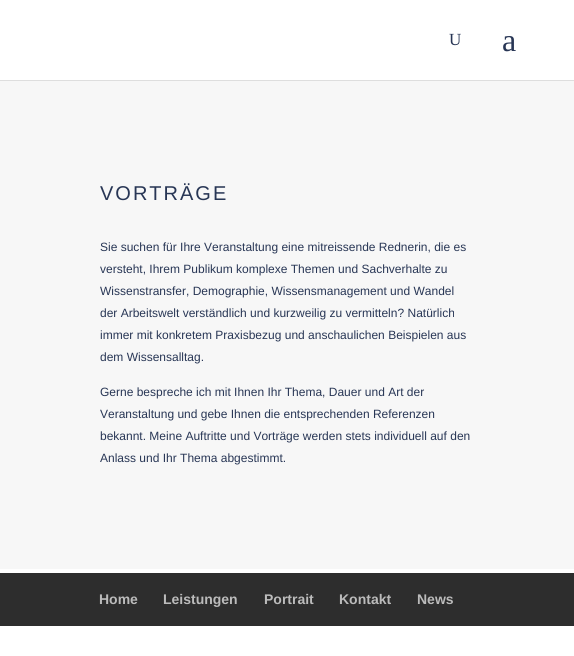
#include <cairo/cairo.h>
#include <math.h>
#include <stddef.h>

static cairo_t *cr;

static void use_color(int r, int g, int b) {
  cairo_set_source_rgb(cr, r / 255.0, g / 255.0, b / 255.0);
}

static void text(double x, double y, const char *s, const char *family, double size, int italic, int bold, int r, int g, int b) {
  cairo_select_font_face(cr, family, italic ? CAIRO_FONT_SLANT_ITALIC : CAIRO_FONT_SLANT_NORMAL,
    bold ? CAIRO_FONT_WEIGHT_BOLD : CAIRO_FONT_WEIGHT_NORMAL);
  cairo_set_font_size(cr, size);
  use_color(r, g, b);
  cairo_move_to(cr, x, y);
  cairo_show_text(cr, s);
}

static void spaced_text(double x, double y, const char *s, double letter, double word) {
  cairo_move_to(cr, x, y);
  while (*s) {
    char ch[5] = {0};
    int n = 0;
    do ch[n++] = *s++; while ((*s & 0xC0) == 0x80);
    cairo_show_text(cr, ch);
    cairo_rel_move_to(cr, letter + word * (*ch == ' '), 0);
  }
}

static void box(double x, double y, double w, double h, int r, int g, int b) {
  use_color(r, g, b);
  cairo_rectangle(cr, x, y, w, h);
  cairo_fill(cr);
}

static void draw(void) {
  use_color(255, 255, 255);
  cairo_paint(cr);
  box(0, 80, 574, 1, 222, 222, 222);
  box(0, 81, 574, 488, 247, 247, 247);
  box(0, 573, 574, 53, 45, 45, 45);
  text(449, 45, "U", "Liberation Serif", 17, 0, 0, 40, 54, 85);
  text(502, 51, "a", "Liberation Serif", 32, 0, 0, 40, 54, 85);
  cairo_select_font_face(cr, "Liberation Sans", CAIRO_FONT_SLANT_NORMAL, CAIRO_FONT_WEIGHT_NORMAL);
  cairo_set_font_size(cr, 20);
  spaced_text(100, 200, "VORTRÄGE", 2, 0);
  text(100, 251, "Sie suchen für Ihre Veranstaltung eine mitreissende Rednerin, die es", "Liberation Sans", 12, 0, 0, 40, 54, 85);
  text(100, 273, "versteht, Ihrem Publikum komplexe Themen und Sachverhalte zu", "Liberation Sans", 12, 0, 0, 40, 54, 85);
  text(100, 295, "Wissenstransfer, Demographie, Wissensmanagement und Wandel", "Liberation Sans", 12, 0, 0, 40, 54, 85);
  text(100, 317, "der Arbeitswelt verständlich und kurzweilig zu vermitteln? Natürlich", "Liberation Sans", 12, 0, 0, 40, 54, 85);
  text(100, 339, "immer mit konkretem Praxisbezug und anschaulichen Beispielen aus", "Liberation Sans", 12, 0, 0, 40, 54, 85);
  text(100, 361, "dem Wissensalltag.", "Liberation Sans", 12, 0, 0, 40, 54, 85);
  text(100, 396, "Gerne bespreche ich mit Ihnen Ihr Thema, Dauer und Art der", "Liberation Sans", 12, 0, 0, 40, 54, 85);
  text(100, 418, "Veranstaltung und gebe Ihnen die entsprechenden Referenzen", "Liberation Sans", 12, 0, 0, 40, 54, 85);
  text(100, 440, "bekannt. Meine Auftritte und Vorträge werden stets individuell auf den", "Liberation Sans", 12, 0, 0, 40, 54, 85);
  text(100, 462, "Anlass und Ihr Thema abgestimmt.", "Liberation Sans", 12, 0, 0, 40, 54, 85);
  text(99, 604, "Home", "Liberation Sans", 14, 0, 1, 187, 187, 187);
  text(163, 604, "Leistungen", "Liberation Sans", 14, 0, 1, 187, 187, 187);
  text(264, 604, "Portrait", "Liberation Sans", 14, 0, 1, 187, 187, 187);
  text(339, 604, "Kontakt", "Liberation Sans", 14, 0, 1, 187, 187, 187);
  text(417, 604, "News", "Liberation Sans", 14, 0, 1, 187, 187, 187);
}

int main(void) {
  cairo_surface_t *surface = cairo_image_surface_create(CAIRO_FORMAT_RGB24, 574, 656);
  cr = cairo_create(surface);
  cairo_font_options_t *options = cairo_font_options_create();
  cairo_font_options_set_hint_metrics(options, CAIRO_HINT_METRICS_OFF);
  cairo_font_options_set_hint_style(options, CAIRO_HINT_STYLE_NONE);
  cairo_set_font_options(cr, options);
  cairo_set_miter_limit(cr, 4);
  draw();
  cairo_surface_write_to_png(surface, "out.png");
  cairo_font_options_destroy(options);
  cairo_destroy(cr);
  cairo_surface_destroy(surface);
  return 0;
}
